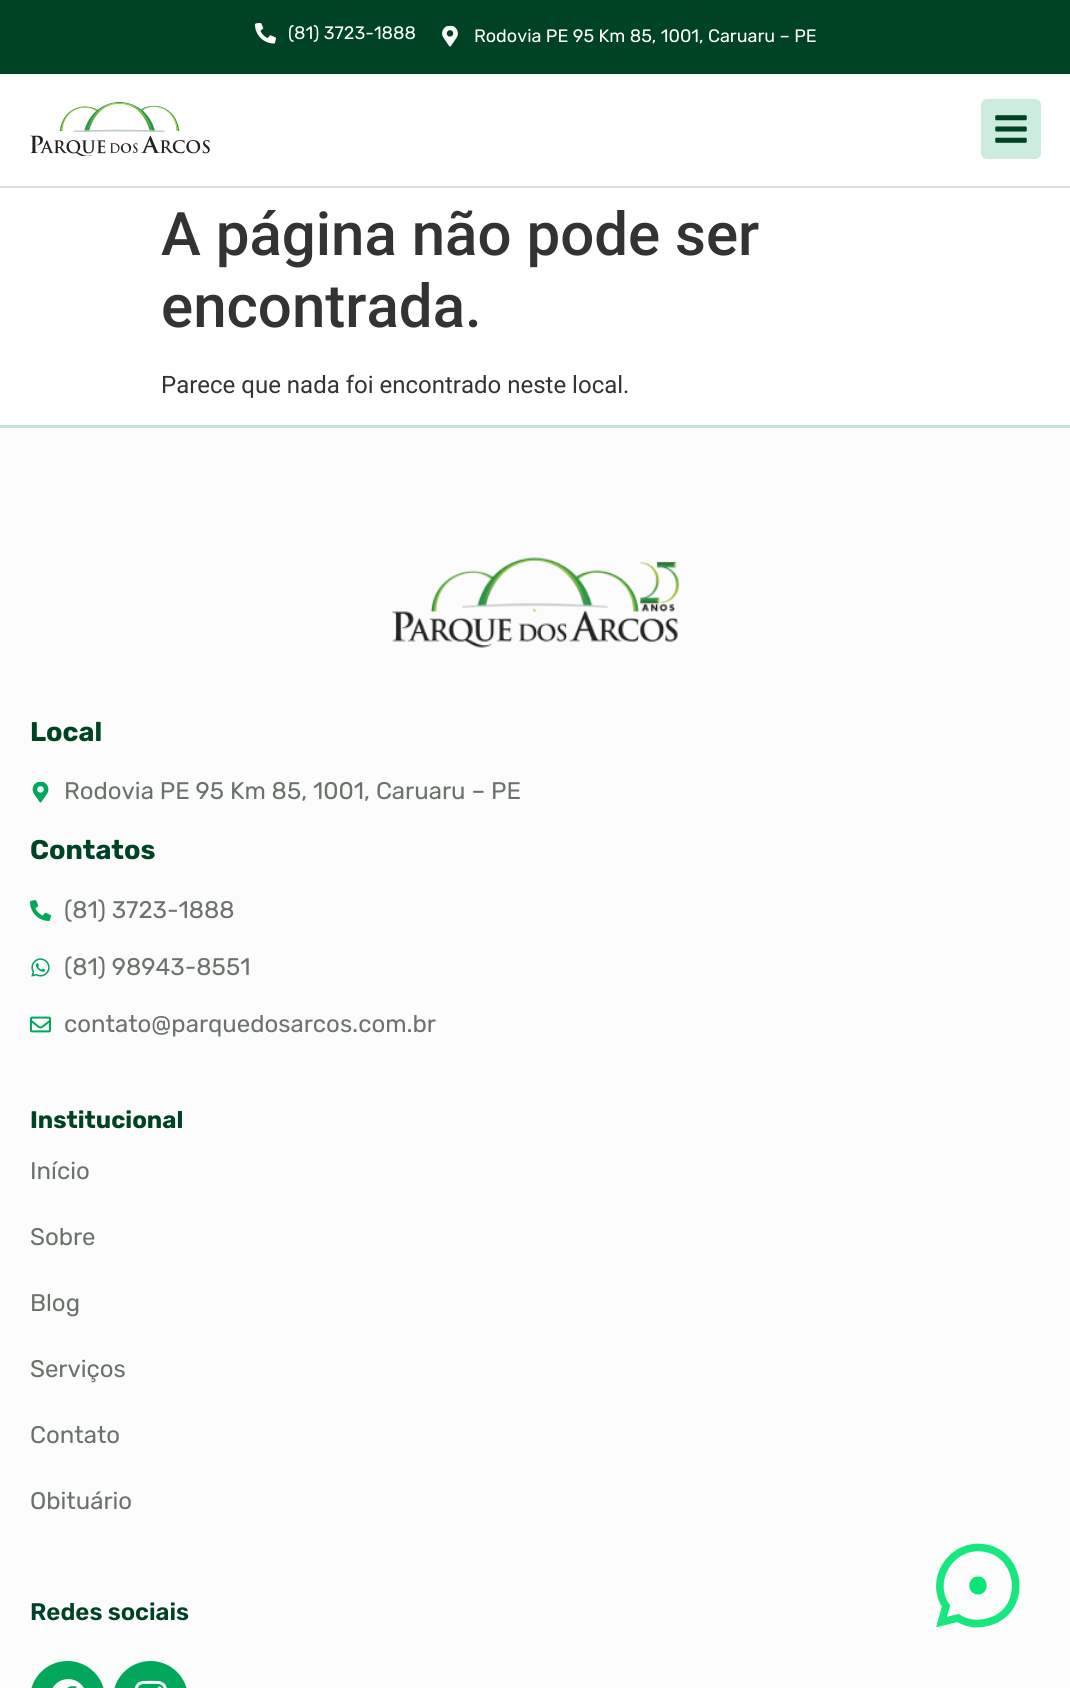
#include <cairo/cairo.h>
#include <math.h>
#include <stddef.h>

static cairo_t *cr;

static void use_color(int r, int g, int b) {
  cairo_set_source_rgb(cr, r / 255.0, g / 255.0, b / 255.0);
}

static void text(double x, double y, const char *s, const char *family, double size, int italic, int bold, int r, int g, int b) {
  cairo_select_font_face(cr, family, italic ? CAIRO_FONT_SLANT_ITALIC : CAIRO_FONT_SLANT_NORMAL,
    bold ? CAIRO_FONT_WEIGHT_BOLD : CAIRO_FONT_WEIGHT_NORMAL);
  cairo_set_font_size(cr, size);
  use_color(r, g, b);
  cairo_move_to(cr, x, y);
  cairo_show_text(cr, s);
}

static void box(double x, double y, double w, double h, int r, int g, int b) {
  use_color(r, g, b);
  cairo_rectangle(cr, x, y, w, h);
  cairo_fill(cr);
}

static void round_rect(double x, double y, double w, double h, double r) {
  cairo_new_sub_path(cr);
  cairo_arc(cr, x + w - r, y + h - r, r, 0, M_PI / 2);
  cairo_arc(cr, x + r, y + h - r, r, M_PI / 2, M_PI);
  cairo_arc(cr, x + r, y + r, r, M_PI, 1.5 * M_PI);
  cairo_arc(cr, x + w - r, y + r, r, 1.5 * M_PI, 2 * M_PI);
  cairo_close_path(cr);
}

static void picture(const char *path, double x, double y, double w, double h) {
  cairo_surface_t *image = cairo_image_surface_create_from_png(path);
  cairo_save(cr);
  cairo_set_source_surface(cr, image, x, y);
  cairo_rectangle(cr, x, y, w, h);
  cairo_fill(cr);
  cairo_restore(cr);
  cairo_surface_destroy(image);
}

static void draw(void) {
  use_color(255, 255, 255);
  cairo_paint(cr);
  box(0, 0, 1070, 74, 0, 67, 36);
  picture("img_01.png", 255, 23, 21, 21);
  picture("img_02.png", 442, 26, 16, 21);
  box(0, 186, 1070, 2, 221, 221, 221);
  picture("img_03.png", 30, 102, 180, 54);
  use_color(204, 237, 222);
  round_rect(981, 99, 60, 60, 6);
  cairo_fill(cr);
  picture("img_04.png", 995, 115, 32, 28);
  box(0, 428, 1070, 1260, 251, 252, 251);
  box(0, 425, 1070, 3, 197, 227, 217);
  picture("img_05.png", 392, 557, 288, 91);
  picture("img_06.png", 32, 782, 17, 21);
  picture("img_07.png", 30, 900, 21, 21);
  picture("img_08.png", 31, 958, 19, 19);
  picture("img_09.png", 30, 1016, 21, 17);
  use_color(1, 167, 90);
  round_rect(30, 1661, 75, 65, 37.5);
  cairo_fill(cr);
  picture("img_10.png", 52, 1679, 32, 9);
  round_rect(113, 1661, 75, 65, 37.5);
  cairo_fill(cr);
  picture("img_11.png", 134, 1680, 33, 8);
  use_color(7, 230, 118);
  cairo_new_path(cr);
  cairo_move_to(cr, 978, 1594.5);
  cairo_curve_to(cr, 989.5, 1594.5, 989.5, 1576.5, 978, 1576.5);
  cairo_curve_to(cr, 966.5, 1576.5, 966.5, 1594.5, 978, 1594.5);
  cairo_close_path(cr);
  cairo_fill(cr);
  cairo_new_path(cr);
  cairo_move_to(cr, 978, 1547.5);
  cairo_curve_to(cr, 1025, 1547.5, 1031, 1620, 979, 1623.5);
  cairo_curve_to(cr, 972, 1624, 964, 1622, 958, 1618);
  cairo_line_to(cr, 941.5, 1622);
  cairo_line_to(cr, 946, 1606);
  cairo_curve_to(cr, 929.5, 1582, 948.5, 1547.5, 978, 1547.5);
  cairo_close_path(cr);
  use_color(22, 231, 126);
  cairo_set_line_width(cr, 7.6);
  cairo_stroke(cr);
  text(288, 39, "(81) 3723-1888", "Rubik", 18, 0, 0, 255, 255, 255);
  text(474, 42, "Rodovia PE 95 Km 85, 1001, Caruaru – PE", "Rubik", 18, 0, 0, 255, 255, 255);
  text(161, 255, "A página não pode ser", "Roboto Medium", 60, 0, 0, 51, 51, 51);
  text(161, 327, "encontrada.", "Roboto Medium", 60, 0, 0, 51, 51, 51);
  text(161, 393, "Parece que nada foi encontrado neste local.", "Roboto", 24, 0, 0, 51, 51, 51);
  text(30, 741, "Local", "Rubik", 27, 0, 1, 0, 67, 36);
  text(64, 799, "Rodovia PE 95 Km 85, 1001, Caruaru – PE", "Rubik", 24, 0, 0, 106, 114, 107);
  text(30, 859, "Contatos", "Rubik", 27, 0, 1, 0, 67, 36);
  text(64, 918, "(81) 3723-1888", "Rubik", 24, 0, 0, 106, 114, 107);
  text(64, 975, "(81) 98943-8551", "Rubik", 24, 0, 0, 106, 114, 107);
  text(64, 1032, "contato@parquedosarcos.com.br", "Rubik", 24, 0, 0, 106, 114, 107);
  text(30, 1128, "Institucional", "Rubik", 24, 0, 1, 0, 67, 36);
  text(30, 1179, "Início", "Rubik", 24, 0, 0, 106, 114, 107);
  text(30, 1245, "Sobre", "Rubik", 24, 0, 0, 106, 114, 107);
  text(30, 1311, "Blog", "Rubik", 24, 0, 0, 106, 114, 107);
  text(30, 1377, "Serviços", "Rubik", 24, 0, 0, 106, 114, 107);
  text(30, 1443, "Contato", "Rubik", 24, 0, 0, 106, 114, 107);
  text(30, 1509, "Obituário", "Rubik", 24, 0, 0, 106, 114, 107);
  text(30, 1620, "Redes sociais", "Rubik SemiBold", 24, 0, 0, 0, 67, 36);
}

int main(void) {
  cairo_surface_t *surface = cairo_image_surface_create(CAIRO_FORMAT_RGB24, 1070, 1688);
  cr = cairo_create(surface);
  cairo_font_options_t *options = cairo_font_options_create();
  cairo_font_options_set_hint_metrics(options, CAIRO_HINT_METRICS_OFF);
  cairo_font_options_set_hint_style(options, CAIRO_HINT_STYLE_NONE);
  cairo_set_font_options(cr, options);
  cairo_set_miter_limit(cr, 4);
  draw();
  cairo_surface_write_to_png(surface, "out.png");
  cairo_font_options_destroy(options);
  cairo_destroy(cr);
  cairo_surface_destroy(surface);
  return 0;
}
